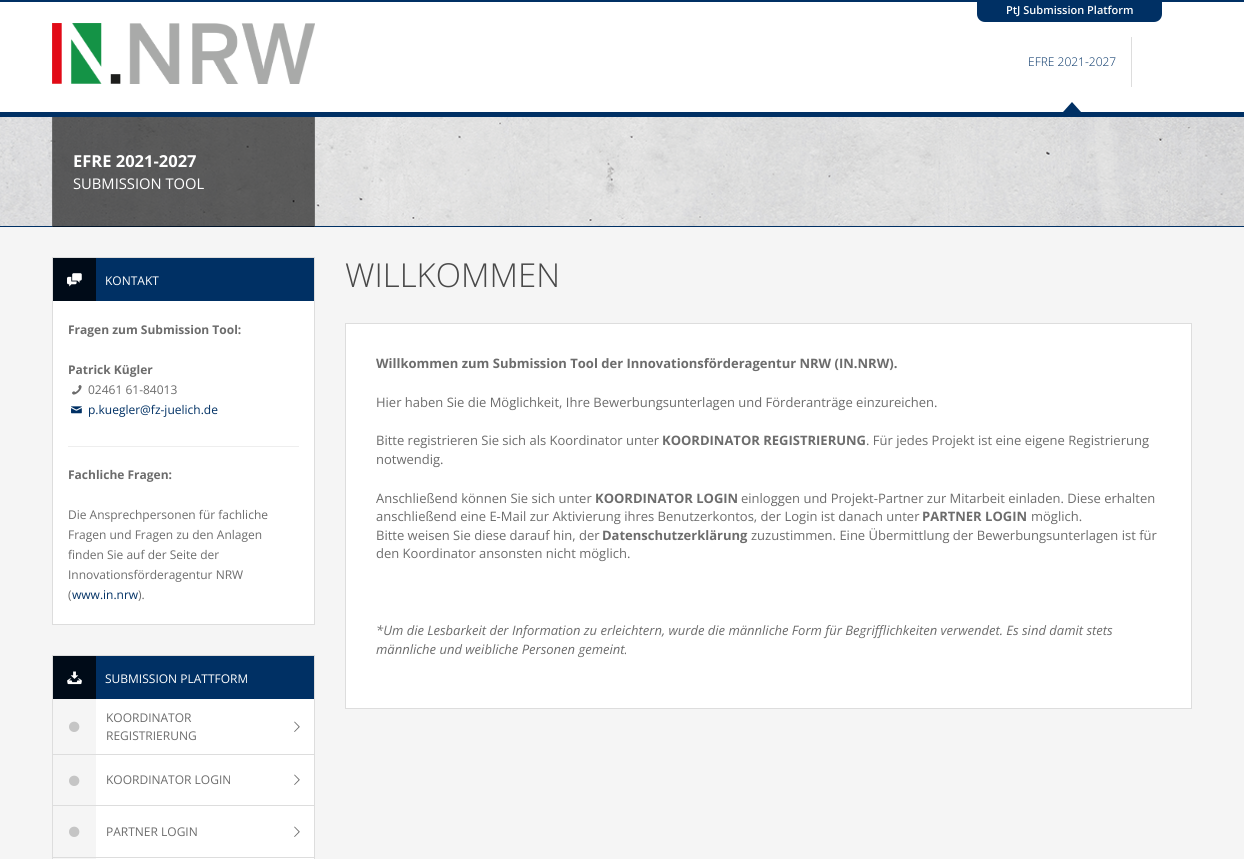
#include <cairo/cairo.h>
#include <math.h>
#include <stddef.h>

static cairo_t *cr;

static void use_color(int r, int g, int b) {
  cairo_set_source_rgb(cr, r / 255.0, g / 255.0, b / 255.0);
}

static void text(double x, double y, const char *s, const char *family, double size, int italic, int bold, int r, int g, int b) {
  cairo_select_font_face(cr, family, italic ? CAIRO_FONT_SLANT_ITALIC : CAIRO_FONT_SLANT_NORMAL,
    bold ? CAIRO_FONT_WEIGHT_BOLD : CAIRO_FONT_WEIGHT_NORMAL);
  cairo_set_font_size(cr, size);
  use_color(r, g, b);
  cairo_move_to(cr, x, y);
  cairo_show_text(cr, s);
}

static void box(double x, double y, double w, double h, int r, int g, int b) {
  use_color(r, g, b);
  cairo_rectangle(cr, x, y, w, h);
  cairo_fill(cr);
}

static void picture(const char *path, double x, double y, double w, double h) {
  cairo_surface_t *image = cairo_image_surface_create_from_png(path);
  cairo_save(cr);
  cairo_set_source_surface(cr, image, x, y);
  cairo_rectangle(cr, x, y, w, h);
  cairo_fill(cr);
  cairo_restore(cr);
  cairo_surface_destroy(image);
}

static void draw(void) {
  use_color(245, 245, 245);
  cairo_paint(cr);
  box(0, 2, 1244, 110, 255, 255, 255);
  box(0, 0, 1244, 2, 0, 48, 100);
  box(0, 112, 1244, 5, 0, 48, 100);
  picture("img_01.png", 52, 23, 263, 61);
  cairo_new_path(cr);
  cairo_move_to(cr, 977, 2);
  cairo_line_to(cr, 1162, 2);
  cairo_line_to(cr, 1162, 14);
  cairo_curve_to(cr, 1162, 18.5, 1158.5, 22, 1154, 22);
  cairo_line_to(cr, 985, 22);
  cairo_curve_to(cr, 980.5, 22, 977, 18.5, 977, 14);
  cairo_close_path(cr);
  cairo_fill(cr);
  cairo_new_path(cr);
  cairo_move_to(cr, 1081, 112);
  cairo_line_to(cr, 1063, 112);
  cairo_line_to(cr, 1072, 102);
  cairo_close_path(cr);
  cairo_fill(cr);
  box(1131, 37, 1, 50, 221, 221, 221);
  picture("img_02.png", 0, 117, 1244, 109);
  box(0, 226, 1244, 1, 0, 48, 100);
  cairo_set_source_rgba(cr, 0, 0, 0, 0.6);
  cairo_rectangle(cr, 52, 117, 263, 110);
  cairo_fill(cr);
  cairo_set_source_rgba(cr, 1, 1, 1, 0.1);
  cairo_rectangle(cr, 314, 117, 1, 110);
  cairo_fill(cr);
  cairo_rectangle(cr, 52, 117, 1, 110);
  cairo_fill(cr);
  box(53, 301, 261, 323, 255, 255, 255);
  cairo_rectangle(cr, 52.5, 257.5, 262, 367);
  use_color(221, 221, 221);
  cairo_set_line_width(cr, 1);
  cairo_stroke(cr);
  box(96, 258, 218, 43, 0, 48, 100);
  box(53, 258, 43, 43, 0, 11, 24);
  picture("img_03.png", 67, 273, 15, 14);
  picture("img_04.png", 72, 385, 10, 10);
  picture("img_05.png", 71, 406, 11, 8);
  box(68, 446, 231, 1, 238, 238, 238);
  box(96, 699, 218, 160, 255, 255, 255);
  cairo_rectangle(cr, 52.5, 655.5, 262, 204);
  use_color(221, 221, 221);
  cairo_stroke(cr);
  box(96, 656, 218, 43, 0, 48, 100);
  box(53, 656, 43, 43, 0, 11, 24);
  picture("img_06.png", 67, 671, 15, 14);
  box(53, 754, 261, 1, 221, 221, 221);
  picture("img_07.png", 69, 721, 11, 11);
  picture("img_08.png", 294, 721, 6, 11);
  box(53, 805, 261, 1, 221, 221, 221);
  picture("img_07.png", 69, 775, 11, 11);
  picture("img_08.png", 294, 774, 6, 11);
  box(53, 857, 261, 1, 221, 221, 221);
  picture("img_07.png", 69, 826, 11, 11);
  picture("img_08.png", 294, 826, 6, 11);
  use_color(255, 255, 255);
  cairo_rectangle(cr, 345.5, 323.5, 846, 385);
  cairo_fill_preserve(cr);
  use_color(221, 221, 221);
  cairo_stroke(cr);
  text(1006, 14, "PtJ Submission Platform", "Open Sans SemiBold", 11, 0, 0, 255, 255, 255);
  text(1028, 66, "EFRE 2021-2027", "Open Sans Light", 12, 0, 0, 0, 48, 100);
  text(73, 167, "EFRE 2021-2027", "Open Sans", 16.5, 0, 1, 255, 255, 255);
  text(73, 189, "SUBMISSION TOOL", "Open Sans", 14.75, 0, 0, 255, 255, 255);
  text(105, 285, "KONTAKT", "Open Sans", 12, 0, 0, 255, 255, 255);
  text(68, 334, "Fragen zum Submission Tool:", "Open Sans", 12, 0, 1, 108, 108, 108);
  text(68, 374, "Patrick Kügler", "Open Sans", 12, 0, 1, 108, 108, 108);
  text(88, 394, "02461 61-84013", "Open Sans", 12, 0, 0, 108, 108, 108);
  text(88, 414, "p.kuegler@fz-juelich.de", "Open Sans", 12, 0, 0, 0, 48, 100);
  text(68, 479, "Fachliche Fragen:", "Open Sans", 12, 0, 1, 108, 108, 108);
  text(68, 519, "Die Ansprechpersonen für fachliche", "Open Sans", 12, 0, 0, 108, 108, 108);
  text(68, 539, "Fragen und Fragen zu den Anlagen", "Open Sans", 12, 0, 0, 108, 108, 108);
  text(68, 559, "finden Sie auf der Seite der", "Open Sans", 12, 0, 0, 108, 108, 108);
  text(68, 579, "Innovationsförderagentur NRW", "Open Sans", 12, 0, 0, 108, 108, 108);
  text(68, 599, "(", "Open Sans", 12, 0, 0, 108, 108, 108);
  text(72, 599, "www.in.nrw", "Open Sans", 12, 0, 0, 0, 48, 100);
  text(138, 599, ").", "Open Sans", 12, 0, 0, 108, 108, 108);
  text(105, 683, "SUBMISSION PLATTFORM", "Open Sans", 12, 0, 0, 255, 255, 255);
  text(106, 722, "KOORDINATOR", "Open Sans", 12, 0, 0, 108, 108, 108);
  text(106, 740, "REGISTRIERUNG", "Open Sans", 12, 0, 0, 108, 108, 108);
  text(106, 784, "KOORDINATOR LOGIN", "Open Sans", 12, 0, 0, 108, 108, 108);
  text(106, 836, "PARTNER LOGIN", "Open Sans", 12, 0, 0, 108, 108, 108);
  text(345, 287, "WILLKOMMEN", "Open Sans Light", 33, 0, 0, 73, 73, 73);
  text(376, 368, "Willkommen zum Submission Tool der Innovationsförderagentur NRW (IN.NRW).", "Open Sans", 13, 0, 1, 108, 108, 108);
  text(376, 407, "Hier haben Sie die Möglichkeit, Ihre Bewerbungsunterlagen und Förderanträge einzureichen.", "Open Sans", 13, 0, 0, 108, 108, 108);
  text(376, 445, "Bitte registrieren Sie sich als Koordinator unter", "Open Sans", 13, 0, 0, 108, 108, 108);
  text(662, 445, "KOORDINATOR REGISTRIERUNG", "Open Sans", 13, 0, 1, 108, 108, 108);
  text(866, 445, ". Für jedes Projekt ist eine eigene Registrierung", "Open Sans", 13, 0, 0, 108, 108, 108);
  text(376, 464, "notwendig.", "Open Sans", 13, 0, 0, 108, 108, 108);
  text(376, 503, "Anschließend können Sie sich unter", "Open Sans", 13, 0, 0, 108, 108, 108);
  text(595, 503, "KOORDINATOR LOGIN", "Open Sans", 13, 0, 1, 108, 108, 108);
  text(741, 503, "einloggen und Projekt-Partner zur Mitarbeit einladen. Diese erhalten", "Open Sans", 13, 0, 0, 108, 108, 108);
  text(376, 521, "anschließend eine E-Mail zur Aktivierung ihres Benutzerkontos, der Login ist danach unter", "Open Sans", 13, 0, 0, 108, 108, 108);
  text(922, 521, "PARTNER LOGIN", "Open Sans", 13, 0, 1, 108, 108, 108);
  text(1031, 521, "möglich.", "Open Sans", 13, 0, 0, 108, 108, 108);
  text(376, 540, "Bitte weisen Sie diese darauf hin, der", "Open Sans", 13, 0, 0, 108, 108, 108);
  text(602, 540, "Datenschutzerklärung", "Open Sans", 13, 0, 1, 108, 108, 108);
  text(751, 540, "zuzustimmen. Eine Übermittlung der Bewerbungsunterlagen ist für", "Open Sans", 13, 0, 0, 108, 108, 108);
  text(376, 558, "den Koordinator ansonsten nicht möglich.", "Open Sans", 13, 0, 0, 108, 108, 108);
  text(376, 635, "*Um die Lesbarkeit der Information zu erleichtern, wurde die männliche Form für Begrifflichkeiten verwendet. Es sind damit stets", "Open Sans", 13, 1, 0, 108, 108, 108);
  text(376, 654, "männliche und weibliche Personen gemeint.", "Open Sans", 13, 1, 0, 108, 108, 108);
}

int main(void) {
  cairo_surface_t *surface = cairo_image_surface_create(CAIRO_FORMAT_RGB24, 1244, 859);
  cr = cairo_create(surface);
  cairo_font_options_t *options = cairo_font_options_create();
  cairo_font_options_set_hint_metrics(options, CAIRO_HINT_METRICS_OFF);
  cairo_font_options_set_hint_style(options, CAIRO_HINT_STYLE_NONE);
  cairo_set_font_options(cr, options);
  cairo_set_miter_limit(cr, 4);
  draw();
  cairo_surface_write_to_png(surface, "out.png");
  cairo_font_options_destroy(options);
  cairo_destroy(cr);
  cairo_surface_destroy(surface);
  return 0;
}
